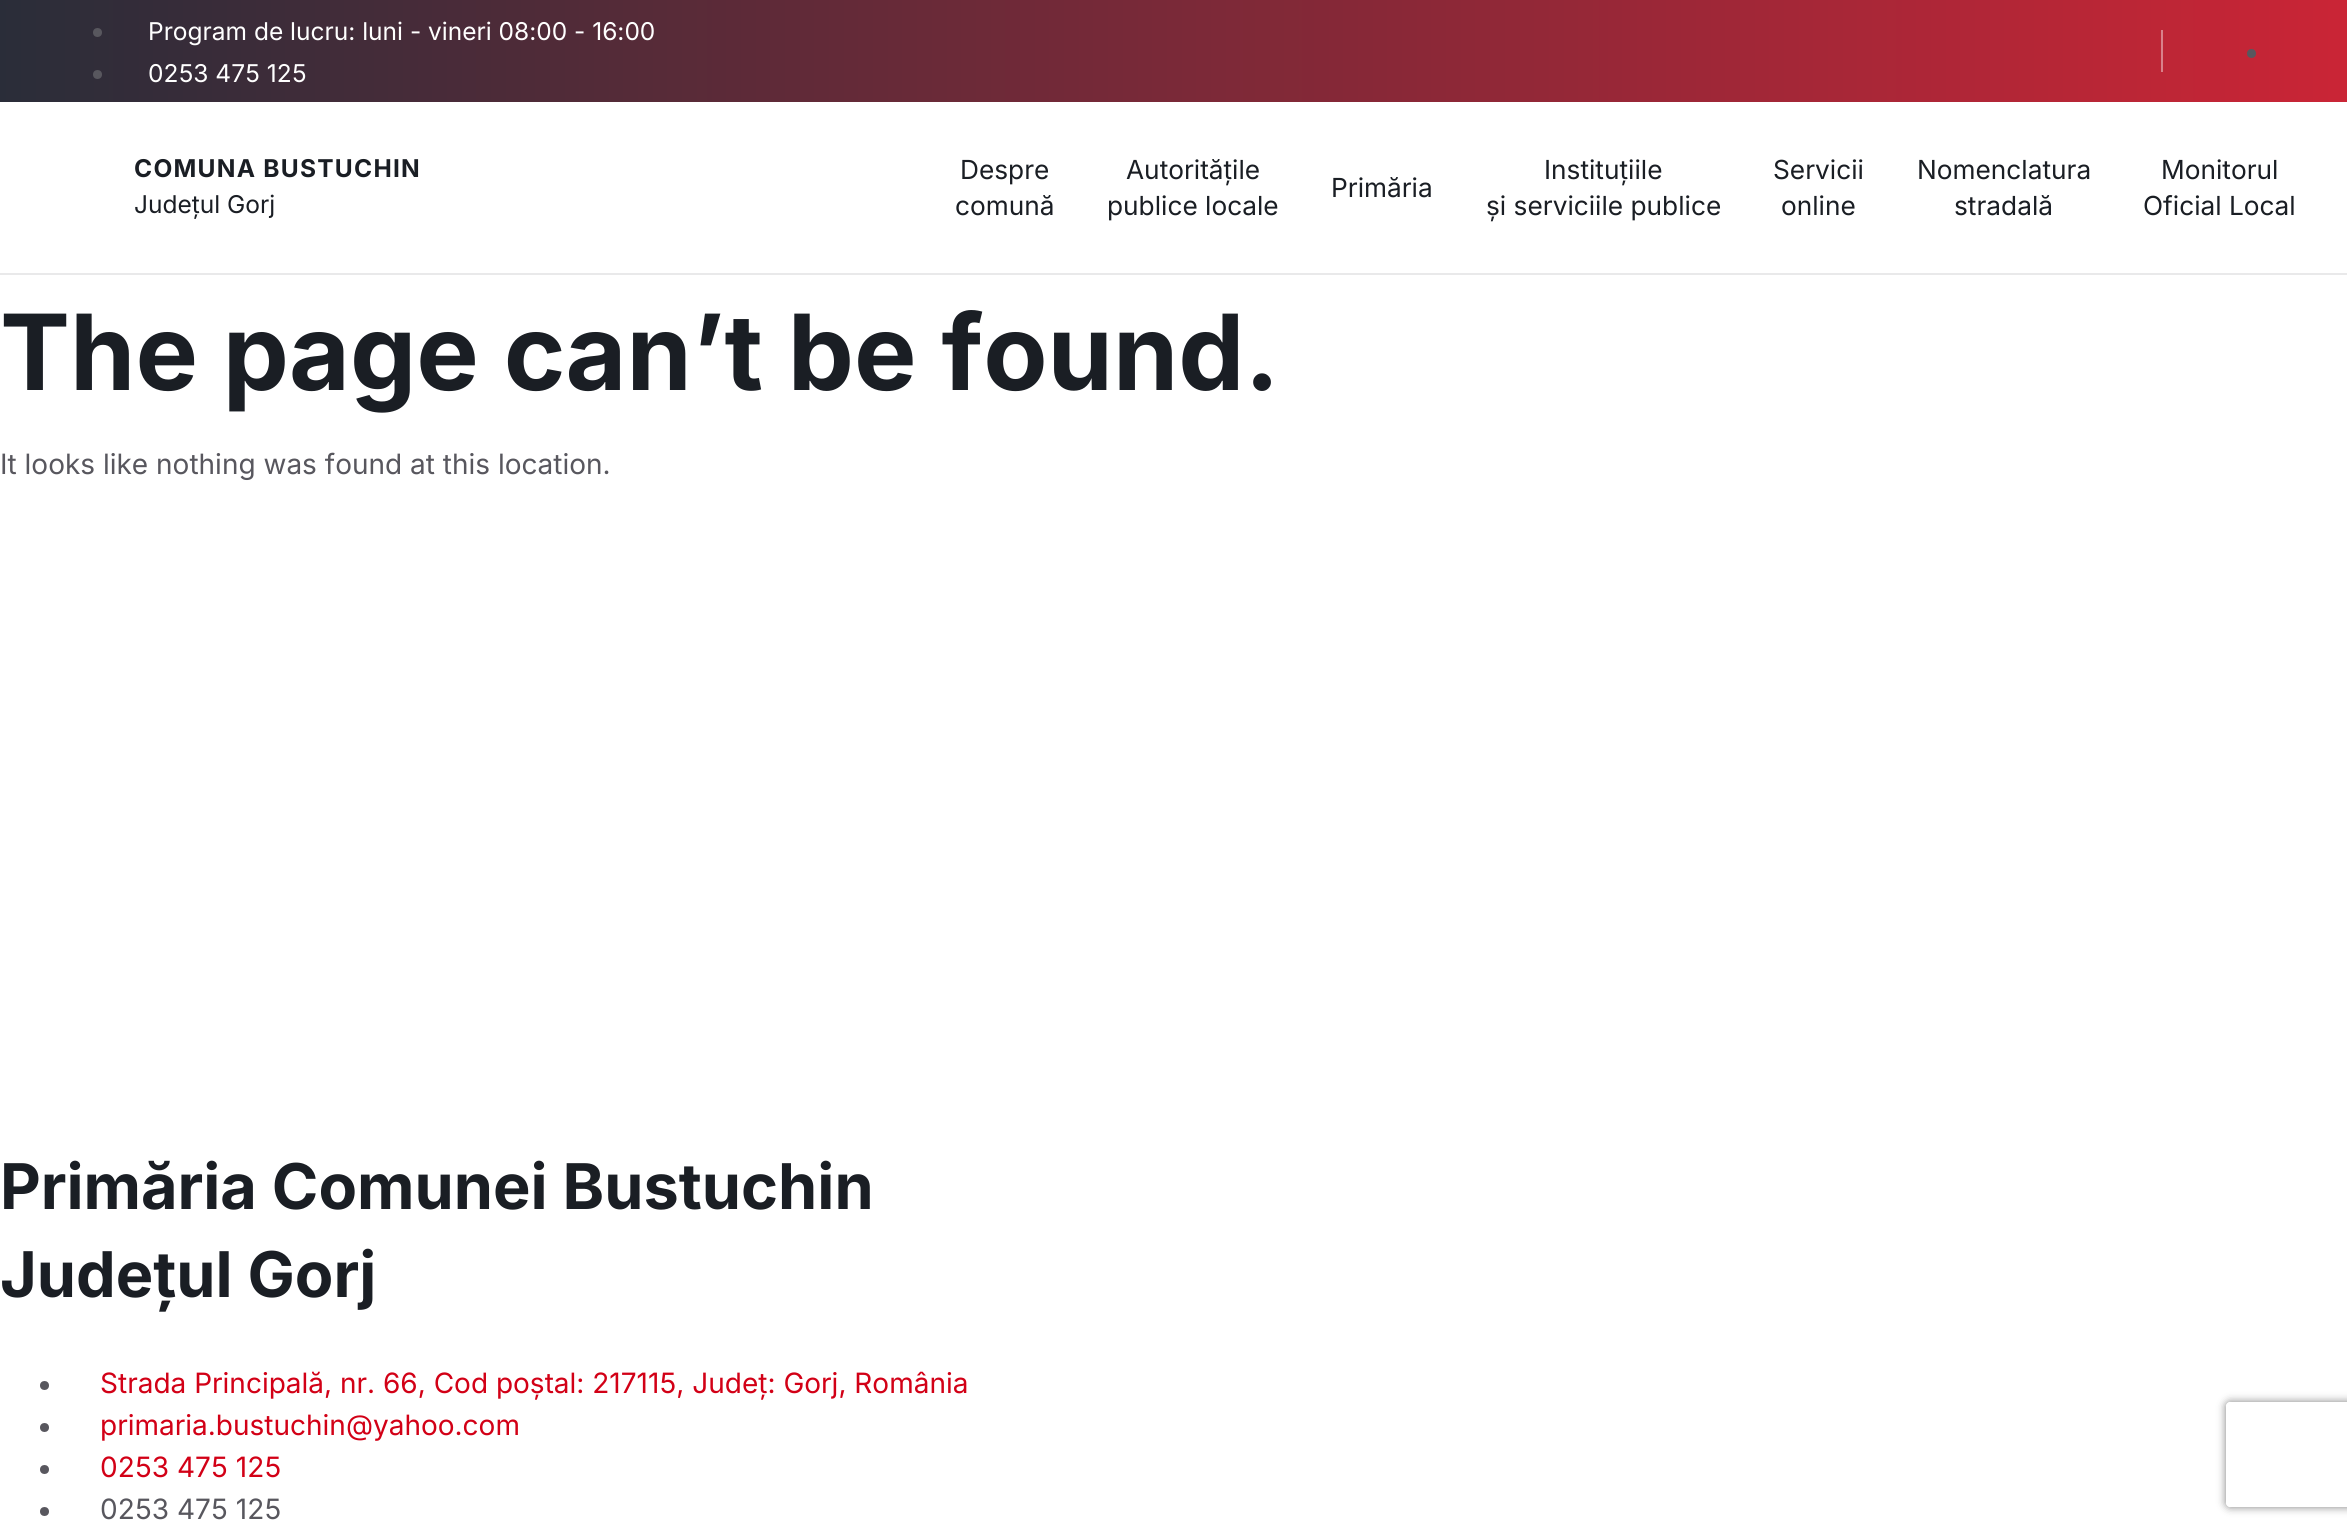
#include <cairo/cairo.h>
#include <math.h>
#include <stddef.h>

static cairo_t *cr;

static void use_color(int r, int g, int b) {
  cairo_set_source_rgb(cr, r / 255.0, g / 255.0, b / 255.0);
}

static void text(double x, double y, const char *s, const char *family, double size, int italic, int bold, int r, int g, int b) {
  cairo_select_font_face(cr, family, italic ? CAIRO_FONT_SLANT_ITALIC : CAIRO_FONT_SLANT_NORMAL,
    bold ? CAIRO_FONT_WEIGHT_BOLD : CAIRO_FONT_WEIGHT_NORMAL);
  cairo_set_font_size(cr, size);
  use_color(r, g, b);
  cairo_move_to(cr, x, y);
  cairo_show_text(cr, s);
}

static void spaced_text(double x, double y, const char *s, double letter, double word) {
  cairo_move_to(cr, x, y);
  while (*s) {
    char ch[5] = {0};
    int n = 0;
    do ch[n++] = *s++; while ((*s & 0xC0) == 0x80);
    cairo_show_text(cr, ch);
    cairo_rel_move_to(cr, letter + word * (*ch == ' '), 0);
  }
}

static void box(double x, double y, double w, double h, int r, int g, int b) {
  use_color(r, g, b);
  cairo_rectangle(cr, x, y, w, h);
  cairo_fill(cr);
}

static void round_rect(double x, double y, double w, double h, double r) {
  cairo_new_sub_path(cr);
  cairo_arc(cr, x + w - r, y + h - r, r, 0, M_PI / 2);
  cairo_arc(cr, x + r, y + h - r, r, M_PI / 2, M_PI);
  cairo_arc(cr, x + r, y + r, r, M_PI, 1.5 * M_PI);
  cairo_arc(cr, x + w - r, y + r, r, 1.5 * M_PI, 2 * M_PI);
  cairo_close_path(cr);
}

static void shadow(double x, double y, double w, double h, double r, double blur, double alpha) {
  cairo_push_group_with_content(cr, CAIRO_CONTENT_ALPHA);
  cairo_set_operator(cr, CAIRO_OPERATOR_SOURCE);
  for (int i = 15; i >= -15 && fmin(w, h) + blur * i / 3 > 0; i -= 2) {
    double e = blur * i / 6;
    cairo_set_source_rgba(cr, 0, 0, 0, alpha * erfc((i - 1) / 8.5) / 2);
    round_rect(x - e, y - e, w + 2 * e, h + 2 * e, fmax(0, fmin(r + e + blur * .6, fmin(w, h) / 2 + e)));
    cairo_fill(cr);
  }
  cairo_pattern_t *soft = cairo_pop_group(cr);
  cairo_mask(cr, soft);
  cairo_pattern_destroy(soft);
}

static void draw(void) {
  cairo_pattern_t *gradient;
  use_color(255, 255, 255);
  cairo_paint(cr);
  box(0, 273, 2347, 2, 233, 233, 234);
  gradient = cairo_pattern_create_linear(0, 51, 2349, 51);
  cairo_pattern_add_color_stop_rgba(gradient, 0, 0.165, 0.176, 0.224, 1);
  cairo_pattern_add_color_stop_rgba(gradient, 1, 0.792, 0.145, 0.212, 1);
  cairo_set_source(cr, gradient);
  cairo_pattern_destroy(gradient);
  cairo_rectangle(cr, 0, 0, 2347, 102);
  cairo_fill(cr);
  use_color(88, 87, 94);
  cairo_arc(cr, 97.5, 32.5, 4.5, 0, 2 * M_PI);
  cairo_fill(cr);
  cairo_arc(cr, 97.5, 74.5, 4.5, 0, 2 * M_PI);
  cairo_fill(cr);
  box(2161, 30, 2, 42, 217, 129, 138);
  use_color(88, 87, 94);
  cairo_arc(cr, 2251.5, 53.5, 4.5, 0, 2 * M_PI);
  cairo_fill(cr);
  cairo_arc(cr, 44.5, 1385.5, 4.5, 0, 2 * M_PI);
  cairo_fill(cr);
  cairo_arc(cr, 44.5, 1427.5, 4.5, 0, 2 * M_PI);
  cairo_fill(cr);
  cairo_arc(cr, 44.5, 1469.5, 4.5, 0, 2 * M_PI);
  cairo_fill(cr);
  cairo_arc(cr, 44.5, 1511.5, 4.5, 0, 2 * M_PI);
  cairo_fill(cr);
  cairo_save(cr);
  cairo_set_fill_rule(cr, CAIRO_FILL_RULE_EVEN_ODD);
  cairo_new_path(cr);
  cairo_move_to(cr, 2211, 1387);
  cairo_line_to(cr, 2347, 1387);
  cairo_line_to(cr, 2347, 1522);
  cairo_line_to(cr, 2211, 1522);
  cairo_close_path(cr);
  cairo_move_to(cr, 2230, 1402);
  cairo_line_to(cr, 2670, 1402);
  cairo_curve_to(cr, 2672, 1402, 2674, 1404, 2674, 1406);
  cairo_line_to(cr, 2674, 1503);
  cairo_curve_to(cr, 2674, 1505, 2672, 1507, 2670, 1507);
  cairo_line_to(cr, 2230, 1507);
  cairo_curve_to(cr, 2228, 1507, 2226, 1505, 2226, 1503);
  cairo_line_to(cr, 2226, 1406);
  cairo_curve_to(cr, 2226, 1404, 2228, 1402, 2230, 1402);
  cairo_close_path(cr);
  cairo_clip(cr);
  use_color(128, 128, 128);
  shadow(2226, 1402, 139, 105, 4, 4.5, 1);
  cairo_restore(cr);
  text(148, 40, "Program de lucru: luni - vineri 08:00 - 16:00", "Inter", 24.5, 0, 0, 255, 255, 255);
  text(148, 82, "0253 475 125", "Inter", 24.5, 0, 0, 255, 255, 255);
  cairo_select_font_face(cr, "Inter", CAIRO_FONT_SLANT_NORMAL, CAIRO_FONT_WEIGHT_BOLD);
  use_color(26, 30, 36);
  spaced_text(134, 177, "COMUNA BUSTUCHIN", 1.25, 0);
  text(134, 213, "Județul Gorj", "Inter", 24.5, 0, 0, 26, 30, 36);
  text(960, 179, "Despre", "Inter", 26.25, 0, 0, 26, 30, 36);
  text(955, 215, "comună", "Inter", 26.25, 0, 0, 26, 30, 36);
  text(1126, 179, "Autoritățile", "Inter", 26.25, 0, 0, 26, 30, 36);
  text(1107, 215, "publice locale", "Inter", 26.25, 0, 0, 26, 30, 36);
  text(1331, 197, "Primăria", "Inter", 26.25, 0, 0, 26, 30, 36);
  text(1544, 179, "Instituțiile", "Inter", 26.25, 0, 0, 26, 30, 36);
  text(1486, 215, "și serviciile publice", "Inter", 26.25, 0, 0, 26, 30, 36);
  text(1773, 179, "Servicii", "Inter", 26.25, 0, 0, 26, 30, 36);
  text(1781, 215, "online", "Inter", 26.25, 0, 0, 26, 30, 36);
  text(1917, 179, "Nomenclatura", "Inter", 26.25, 0, 0, 26, 30, 36);
  text(1954, 215, "stradală", "Inter", 26.25, 0, 0, 26, 30, 36);
  text(2161, 179, "Monitorul", "Inter", 26.25, 0, 0, 26, 30, 36);
  text(2143, 215, "Oficial Local", "Inter", 26.25, 0, 0, 26, 30, 36);
  text(0, 390, "The page can’t be found.", "Inter", 105, 0, 1, 26, 30, 36);
  text(0, 474, "It looks like nothing was found at this location.", "Inter", 28, 0, 0, 88, 87, 94);
  text(0, 1209, "Primăria Comunei Bustuchin", "Inter", 63, 0, 1, 26, 30, 36);
  text(0, 1297, "Județul Gorj", "Inter", 63, 0, 1, 26, 30, 36);
  text(100, 1393, "Strada Principală, nr. 66, Cod poștal: 217115, Județ: Gorj, România", "Inter", 28, 0, 0, 210, 0, 22);
  text(100, 1435, "primaria.bustuchin@yahoo.com", "Inter", 28, 0, 0, 210, 0, 22);
  text(100, 1477, "0253 475 125", "Inter", 28, 0, 0, 210, 0, 22);
  text(100, 1519, "0253 475 125", "Inter", 28, 0, 0, 88, 87, 94);
}

int main(void) {
  cairo_surface_t *surface = cairo_image_surface_create(CAIRO_FORMAT_RGB24, 2347, 1530);
  cr = cairo_create(surface);
  cairo_font_options_t *options = cairo_font_options_create();
  cairo_font_options_set_hint_metrics(options, CAIRO_HINT_METRICS_OFF);
  cairo_font_options_set_hint_style(options, CAIRO_HINT_STYLE_NONE);
  cairo_set_font_options(cr, options);
  cairo_set_miter_limit(cr, 4);
  draw();
  cairo_surface_write_to_png(surface, "out.png");
  cairo_font_options_destroy(options);
  cairo_destroy(cr);
  cairo_surface_destroy(surface);
  return 0;
}
